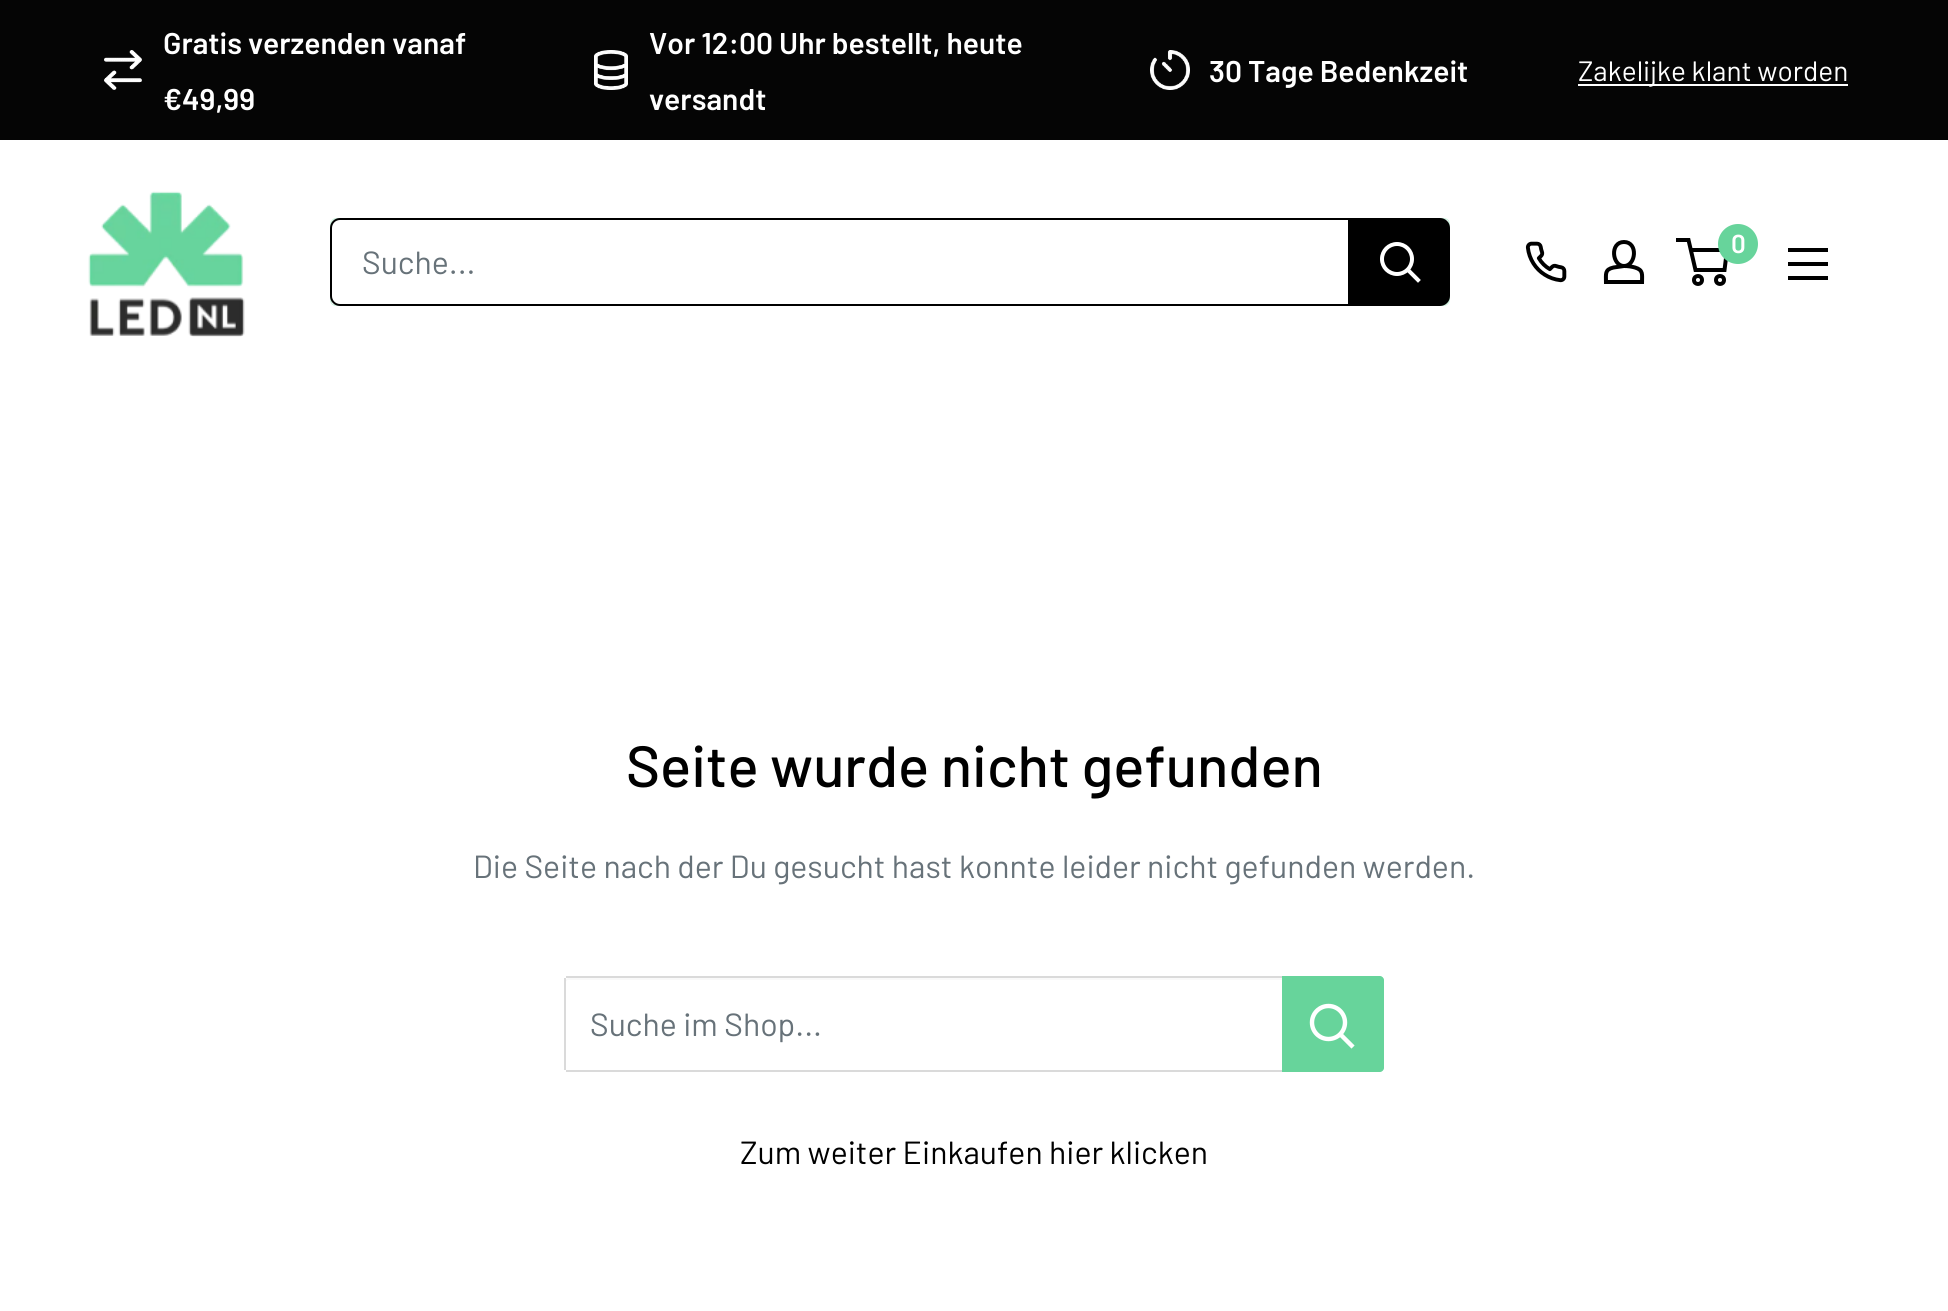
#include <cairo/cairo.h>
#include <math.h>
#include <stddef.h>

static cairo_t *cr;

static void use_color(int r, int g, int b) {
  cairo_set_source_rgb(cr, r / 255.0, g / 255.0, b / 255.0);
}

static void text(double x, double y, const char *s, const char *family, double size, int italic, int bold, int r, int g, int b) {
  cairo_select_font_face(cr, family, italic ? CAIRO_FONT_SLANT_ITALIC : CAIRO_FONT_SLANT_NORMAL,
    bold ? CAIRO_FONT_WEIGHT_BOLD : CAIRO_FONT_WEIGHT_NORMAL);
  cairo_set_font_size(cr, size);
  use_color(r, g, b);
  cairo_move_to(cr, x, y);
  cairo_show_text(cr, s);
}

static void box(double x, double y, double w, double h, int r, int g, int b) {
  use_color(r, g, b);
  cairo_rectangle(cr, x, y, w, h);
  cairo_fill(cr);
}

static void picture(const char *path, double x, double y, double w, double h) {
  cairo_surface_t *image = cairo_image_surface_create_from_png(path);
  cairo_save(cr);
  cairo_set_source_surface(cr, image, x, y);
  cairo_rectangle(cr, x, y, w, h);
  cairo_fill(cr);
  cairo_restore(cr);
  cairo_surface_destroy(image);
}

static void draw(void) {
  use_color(255, 255, 255);
  cairo_paint(cr);
  box(0, 0, 1948, 140, 5, 5, 5);
  picture("img_01.png", 104, 50, 38, 40);
  picture("img_02.png", 594, 50, 34, 40);
  picture("img_03.png", 1150, 50, 40, 40);
  box(1578, 84, 270, 2, 255, 255, 255);
  picture("img_04.png", 88, 191, 157, 146);
  picture("img_05.png", 1525, 241, 42, 42);
  cairo_new_path(cr);
  cairo_move_to(cr, 1624, 266);
  cairo_curve_to(cr, 1628, 266, 1631.5, 266.5, 1635, 267.5);
  cairo_curve_to(cr, 1643.5, 270, 1642, 274.5, 1642, 282);
  cairo_line_to(cr, 1606, 282);
  cairo_curve_to(cr, 1606, 274, 1604.5, 269.5, 1613.5, 267.5);
  cairo_close_path(cr);
  cairo_move_to(cr, 1624, 266);
  cairo_curve_to(cr, 1612, 266, 1609.5, 242, 1624, 242);
  cairo_curve_to(cr, 1638.5, 242, 1636, 266, 1624, 266);
  cairo_close_path(cr);
  use_color(0, 0, 0);
  cairo_set_line_width(cr, 4);
  cairo_stroke(cr);
  cairo_arc(cr, 1698, 280, 4, 0, 2 * M_PI);
  cairo_stroke(cr);
  cairo_arc(cr, 1720, 280, 4, 0, 2 * M_PI);
  cairo_stroke(cr);
  cairo_new_path(cr);
  cairo_move_to(cr, 1690.5, 250);
  cairo_line_to(cr, 1727, 250);
  cairo_line_to(cr, 1724.5, 270);
  cairo_line_to(cr, 1695.5, 270);
  cairo_line_to(cr, 1688.5, 240);
  cairo_line_to(cr, 1676, 240);
  cairo_stroke(cr);
  use_color(103, 212, 155);
  cairo_arc(cr, 1738, 244, 20, 0, 2 * M_PI);
  cairo_fill(cr);
  use_color(0, 0, 0);
  cairo_set_fill_rule(cr, CAIRO_FILL_RULE_EVEN_ODD);
  cairo_new_path(cr);
  cairo_move_to(cr, 1788, 276);
  cairo_line_to(cr, 1828, 276);
  cairo_line_to(cr, 1828, 280);
  cairo_line_to(cr, 1788, 280);
  cairo_close_path(cr);
  cairo_move_to(cr, 1788, 248);
  cairo_line_to(cr, 1828, 248);
  cairo_line_to(cr, 1828, 252);
  cairo_line_to(cr, 1788, 252);
  cairo_close_path(cr);
  cairo_move_to(cr, 1788, 262);
  cairo_line_to(cr, 1828, 262);
  cairo_line_to(cr, 1828, 266);
  cairo_line_to(cr, 1788, 266);
  cairo_close_path(cr);
  cairo_fill(cr);
  use_color(209, 242, 225);
  cairo_set_fill_rule(cr, CAIRO_FILL_RULE_WINDING);
  cairo_new_path(cr);
  cairo_move_to(cr, 331, 303);
  cairo_curve_to(cr, 332, 305, 334, 306, 336, 306);
  cairo_line_to(cr, 1444, 306);
  cairo_curve_to(cr, 1447, 306, 1450, 303, 1450, 300);
  cairo_line_to(cr, 1450, 224);
  cairo_curve_to(cr, 1450, 222, 1449, 220, 1447, 219);
  cairo_curve_to(cr, 1448, 220, 1448, 221, 1448, 222);
  cairo_line_to(cr, 1448, 298);
  cairo_curve_to(cr, 1448, 301, 1445, 304, 1442, 304);
  cairo_line_to(cr, 334, 304);
  cairo_curve_to(cr, 333, 304, 332, 304, 331, 303);
  cairo_close_path(cr);
  cairo_fill(cr);
  cairo_set_source_rgba(cr, 0.404, 0.831, 0.608, 0.3);
  cairo_new_path(cr);
  cairo_move_to(cr, 338, 220);
  cairo_line_to(cr, 1446, 220);
  cairo_line_to(cr, 1449, 221);
  cairo_curve_to(cr, 1448, 219, 1446, 218, 1444, 218);
  cairo_line_to(cr, 336, 218);
  cairo_curve_to(cr, 333, 218, 330, 221, 330, 224);
  cairo_line_to(cr, 330, 300);
  cairo_curve_to(cr, 330, 302, 331, 304, 333, 305);
  cairo_curve_to(cr, 332, 304, 332, 303, 332, 302);
  cairo_line_to(cr, 332, 226);
  cairo_curve_to(cr, 332, 223, 335, 220, 338, 220);
  cairo_close_path(cr);
  cairo_fill(cr);
  cairo_new_path(cr);
  cairo_move_to(cr, 340, 219);
  cairo_line_to(cr, 1349, 219);
  cairo_line_to(cr, 1349, 305);
  cairo_line_to(cr, 340, 305);
  cairo_curve_to(cr, 335, 305, 331, 301, 331, 296);
  cairo_line_to(cr, 331, 228);
  cairo_curve_to(cr, 331, 223, 335, 219, 340, 219);
  cairo_close_path(cr);
  use_color(0, 0, 0);
  cairo_set_line_width(cr, 2);
  cairo_stroke(cr);
  cairo_new_path(cr);
  cairo_move_to(cr, 1350, 218);
  cairo_line_to(cr, 1440, 218);
  cairo_curve_to(cr, 1445.5, 218, 1450, 222.5, 1450, 228);
  cairo_line_to(cr, 1450, 296);
  cairo_curve_to(cr, 1450, 301.5, 1445.5, 306, 1440, 306);
  cairo_line_to(cr, 1350, 306);
  cairo_close_path(cr);
  cairo_fill(cr);
  cairo_new_path(cr);
  cairo_move_to(cr, 1418, 280);
  cairo_line_to(cr, 1408, 270);
  use_color(255, 255, 255);
  cairo_set_line_width(cr, 4);
  cairo_set_line_cap(cr, CAIRO_LINE_CAP_SQUARE);
  cairo_stroke(cr);
  cairo_arc(cr, 1397, 259, 15, 0, 2 * M_PI);
  cairo_set_line_cap(cr, CAIRO_LINE_CAP_BUTT);
  cairo_stroke(cr);
  use_color(249, 249, 249);
  cairo_new_path(cr);
  cairo_move_to(cr, 568, 980);
  cairo_line_to(cr, 1282, 980);
  cairo_line_to(cr, 1282, 978);
  cairo_line_to(cr, 568, 978);
  cairo_line_to(cr, 566, 979);
  cairo_line_to(cr, 566, 982);
  cairo_curve_to(cr, 566, 981, 567, 980, 568, 980);
  cairo_close_path(cr);
  cairo_fill(cr);
  box(566, 976, 716, 2, 218, 218, 218);
  box(566, 1070, 716, 2, 218, 218, 218);
  box(564, 978, 2, 92, 218, 218, 218);
  use_color(103, 212, 155);
  cairo_new_path(cr);
  cairo_move_to(cr, 1282, 976);
  cairo_line_to(cr, 1380, 976);
  cairo_curve_to(cr, 1382, 976, 1384, 978, 1384, 980);
  cairo_line_to(cr, 1384, 1068);
  cairo_curve_to(cr, 1384, 1070, 1382, 1072, 1380, 1072);
  cairo_line_to(cr, 1282, 1072);
  cairo_close_path(cr);
  cairo_fill(cr);
  cairo_new_path(cr);
  cairo_move_to(cr, 1351.5, 1045.5);
  cairo_line_to(cr, 1340.5, 1034.5);
  use_color(255, 255, 255);
  cairo_set_line_width(cr, 4.4);
  cairo_set_line_cap(cr, CAIRO_LINE_CAP_SQUARE);
  cairo_stroke(cr);
  cairo_arc(cr, 1328.5, 1022.5, 16.5, 0, 2 * M_PI);
  cairo_set_line_cap(cr, CAIRO_LINE_CAP_BUTT);
  cairo_stroke(cr);
  text(163, 54, "Gratis verzenden vanaf", "Barlow SemiBold", 30, 0, 0, 255, 255, 255);
  text(163, 110, "€49,99", "Barlow SemiBold", 30, 0, 0, 255, 255, 255);
  text(649, 54, "Vor 12:00 Uhr bestellt, heute", "Barlow SemiBold", 30, 0, 0, 255, 255, 255);
  text(649, 110, "versandt", "Barlow SemiBold", 30, 0, 0, 255, 255, 255);
  text(1209, 82, "30 Tage Bedenkzeit", "Barlow SemiBold", 30, 0, 0, 255, 255, 255);
  text(1578, 81, "Zakelijke klant worden", "Barlow", 28, 0, 0, 255, 255, 255);
  text(1731, 253, "0", "Barlow SemiBold", 26, 0, 0, 255, 255, 255);
  text(362, 274, "Suche...", "Barlow", 32, 0, 0, 103, 114, 121);
  text(626, 787, "Seite wurde nicht gefunden", "Barlow Medium", 58, 0, 0, 0, 0, 0);
  text(473, 878, "Die Seite nach der Du gesucht hast konnte leider nicht gefunden werden.", "Barlow", 32, 0, 0, 103, 114, 121);
  text(590, 1036, "Suche im Shop...", "Barlow", 32, 0, 0, 103, 114, 121);
  text(740, 1164, "Zum weiter Einkaufen hier klicken", "Barlow", 32, 0, 0, 0, 0, 0);
}

int main(void) {
  cairo_surface_t *surface = cairo_image_surface_create(CAIRO_FORMAT_RGB24, 1948, 1311);
  cr = cairo_create(surface);
  cairo_font_options_t *options = cairo_font_options_create();
  cairo_font_options_set_hint_metrics(options, CAIRO_HINT_METRICS_OFF);
  cairo_font_options_set_hint_style(options, CAIRO_HINT_STYLE_NONE);
  cairo_set_font_options(cr, options);
  cairo_set_miter_limit(cr, 4);
  draw();
  cairo_surface_write_to_png(surface, "out.png");
  cairo_font_options_destroy(options);
  cairo_destroy(cr);
  cairo_surface_destroy(surface);
  return 0;
}
